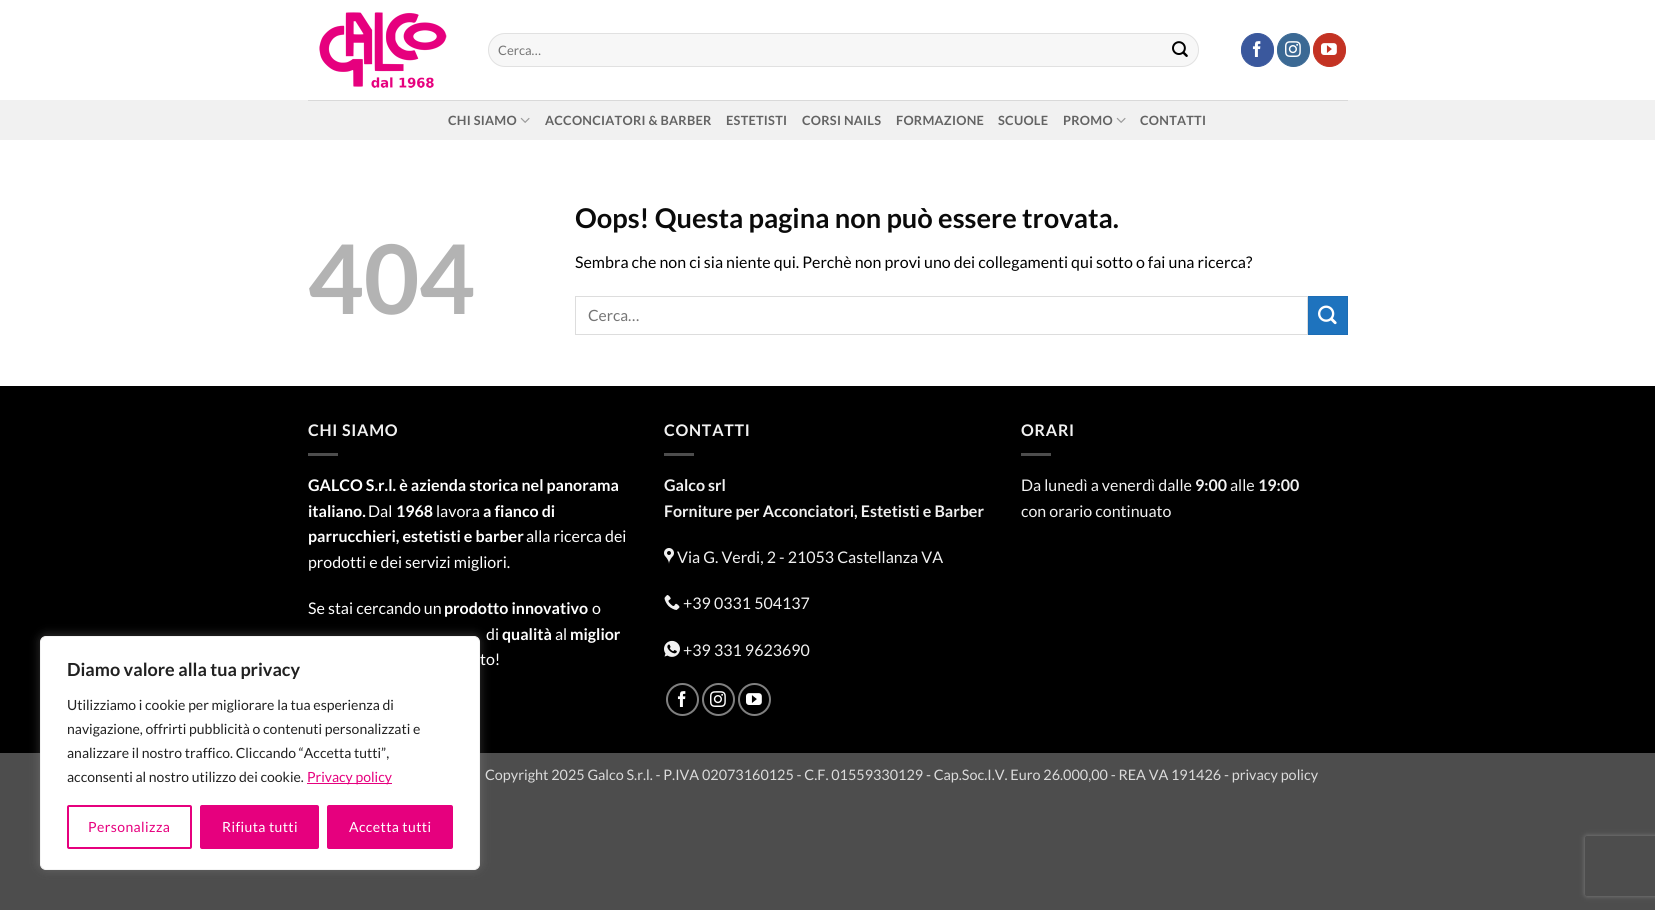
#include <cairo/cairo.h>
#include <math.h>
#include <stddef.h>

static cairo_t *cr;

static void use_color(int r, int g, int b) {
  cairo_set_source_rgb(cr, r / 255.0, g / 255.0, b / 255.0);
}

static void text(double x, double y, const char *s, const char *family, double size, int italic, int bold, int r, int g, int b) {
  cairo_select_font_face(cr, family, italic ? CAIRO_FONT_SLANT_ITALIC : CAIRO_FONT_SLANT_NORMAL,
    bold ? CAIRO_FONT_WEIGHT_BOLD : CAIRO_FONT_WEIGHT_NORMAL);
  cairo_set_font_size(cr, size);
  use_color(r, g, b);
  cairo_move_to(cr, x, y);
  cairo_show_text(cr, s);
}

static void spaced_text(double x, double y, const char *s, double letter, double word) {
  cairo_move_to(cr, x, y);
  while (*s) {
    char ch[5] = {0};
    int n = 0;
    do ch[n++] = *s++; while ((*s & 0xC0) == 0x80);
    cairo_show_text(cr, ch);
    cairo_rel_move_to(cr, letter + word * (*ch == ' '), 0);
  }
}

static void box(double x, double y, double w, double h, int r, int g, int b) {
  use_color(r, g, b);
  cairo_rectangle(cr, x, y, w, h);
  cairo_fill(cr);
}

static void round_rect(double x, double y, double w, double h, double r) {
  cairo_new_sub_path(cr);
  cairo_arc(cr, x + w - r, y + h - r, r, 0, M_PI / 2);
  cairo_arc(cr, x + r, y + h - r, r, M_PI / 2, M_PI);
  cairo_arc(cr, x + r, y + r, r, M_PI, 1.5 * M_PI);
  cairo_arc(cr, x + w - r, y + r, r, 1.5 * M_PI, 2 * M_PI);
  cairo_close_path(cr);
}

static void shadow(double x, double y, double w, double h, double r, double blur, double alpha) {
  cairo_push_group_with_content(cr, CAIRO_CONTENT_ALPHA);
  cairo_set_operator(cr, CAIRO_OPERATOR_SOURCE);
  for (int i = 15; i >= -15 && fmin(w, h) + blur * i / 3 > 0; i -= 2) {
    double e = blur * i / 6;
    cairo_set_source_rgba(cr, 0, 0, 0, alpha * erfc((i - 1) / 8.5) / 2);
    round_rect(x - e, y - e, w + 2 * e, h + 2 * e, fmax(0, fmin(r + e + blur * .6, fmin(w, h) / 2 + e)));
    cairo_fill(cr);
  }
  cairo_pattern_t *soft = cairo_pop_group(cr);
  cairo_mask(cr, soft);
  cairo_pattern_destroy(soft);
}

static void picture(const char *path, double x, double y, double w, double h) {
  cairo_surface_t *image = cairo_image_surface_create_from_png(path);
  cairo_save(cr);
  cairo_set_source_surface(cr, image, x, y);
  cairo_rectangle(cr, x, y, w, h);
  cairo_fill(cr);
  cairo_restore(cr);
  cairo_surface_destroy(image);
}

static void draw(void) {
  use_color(77, 77, 77);
  cairo_paint(cr);
  box(0, 386, 1655, 367, 0, 0, 0);
  use_color(172, 171, 171);
  shadow(40, 635, 440, 234, 6, 5, 0.3);
  use_color(255, 255, 255);
  round_rect(40.5, 636.5, 439, 233, 5.5);
  cairo_fill_preserve(cr);
  use_color(244, 244, 244);
  cairo_set_line_width(cr, 1);
  cairo_stroke(cr);
  box(307, 783, 85, 1, 230, 0, 126);
  round_rect(68, 806, 123, 42, 1);
  cairo_set_line_width(cr, 2);
  cairo_stroke(cr);
  round_rect(201, 806, 117, 42, 1);
  cairo_fill_preserve(cr);
  cairo_stroke(cr);
  round_rect(328, 806, 124, 42, 1);
  cairo_fill_preserve(cr);
  cairo_stroke(cr);
  box(0, 0, 1655, 386, 255, 255, 255);
  picture("img_01.png", 319, 12, 128, 76);
  use_color(247, 247, 247);
  round_rect(488, 33, 711, 34, 17);
  cairo_fill(cr);
  round_rect(488.5, 33.5, 710, 33, 16.5);
  cairo_set_source_rgba(cr, 0, 0, 0, 0.09);
  cairo_set_line_width(cr, 1);
  cairo_stroke(cr);
  picture("img_02.png", 1172, 41, 16, 16);
  use_color(58, 88, 157);
  round_rect(1241.5, 33.5, 32, 33, 16);
  cairo_fill_preserve(cr);
  cairo_stroke(cr);
  picture("img_03.png", 1252, 41, 9, 16);
  use_color(59, 105, 148);
  round_rect(1277.5, 33.5, 32, 33, 16);
  cairo_fill_preserve(cr);
  cairo_stroke(cr);
  picture("img_04.png", 1285, 41, 16, 16);
  use_color(195, 50, 35);
  round_rect(1313.5, 33.5, 32, 33, 16);
  cairo_fill_preserve(cr);
  cairo_stroke(cr);
  picture("img_05.png", 1321, 43, 16, 12);
  box(0, 100, 1655, 40, 241, 241, 241);
  box(308, 100, 1040, 1, 217, 217, 217);
  picture("img_06.png", 520, 117, 10, 6);
  picture("img_06.png", 1116, 117, 10, 6);
  cairo_rectangle(cr, 575.5, 296.5, 732, 38);
  use_color(221, 221, 221);
  cairo_stroke(cr);
  use_color(30, 115, 190);
  cairo_rectangle(cr, 1308.5, 296.5, 39, 38);
  cairo_fill_preserve(cr);
  use_color(29, 109, 181);
  cairo_stroke(cr);
  picture("img_07.png", 1318, 305, 19, 20);
  box(308, 453, 30, 3, 77, 77, 77);
  box(664, 453, 30, 3, 77, 77, 77);
  picture("img_08.png", 664, 548, 10, 16);
  picture("img_09.png", 664, 595, 16, 15);
  picture("img_10.png", 664, 640, 16, 17);
  cairo_arc(cr, 682.5, 699.5, 15.5, 0, 2 * M_PI);
  use_color(128, 128, 128);
  cairo_set_line_width(cr, 2);
  cairo_stroke(cr);
  picture("img_11.png", 677, 691, 9, 16);
  cairo_arc(cr, 718.5, 699.5, 15.5, 0, 2 * M_PI);
  cairo_stroke(cr);
  picture("img_12.png", 710, 691, 16, 16);
  cairo_arc(cr, 754.5, 699.5, 15.5, 0, 2 * M_PI);
  cairo_stroke(cr);
  picture("img_13.png", 746, 693, 16, 12);
  box(1021, 453, 30, 3, 77, 77, 77);
  cairo_save(cr);
  cairo_set_fill_rule(cr, CAIRO_FILL_RULE_EVEN_ODD);
  cairo_new_path(cr);
  cairo_move_to(cr, 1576, 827);
  cairo_line_to(cr, 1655, 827);
  cairo_line_to(cr, 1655, 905);
  cairo_line_to(cr, 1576, 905);
  cairo_close_path(cr);
  cairo_move_to(cr, 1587, 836);
  cairo_line_to(cr, 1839, 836);
  cairo_curve_to(cr, 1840, 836, 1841, 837, 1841, 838);
  cairo_line_to(cr, 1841, 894);
  cairo_curve_to(cr, 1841, 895, 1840, 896, 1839, 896);
  cairo_line_to(cr, 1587, 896);
  cairo_curve_to(cr, 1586, 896, 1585, 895, 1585, 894);
  cairo_line_to(cr, 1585, 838);
  cairo_curve_to(cr, 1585, 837, 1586, 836, 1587, 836);
  cairo_close_path(cr);
  cairo_clip(cr);
  use_color(128, 128, 128);
  shadow(1585, 836, 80, 60, 2, 2.5, 1);
  cairo_restore(cr);
  text(67, 676, "Diamo valore alla tua privacy", "Lato", 18, 0, 1, 33, 33, 33);
  text(67, 710, "Utilizziamo i cookie per migliorare la tua esperienza di", "Lato", 14, 0, 0, 33, 33, 33);
  text(67, 734, "navigazione, offrirti pubblicità o contenuti personalizzati e", "Lato", 14, 0, 0, 33, 33, 33);
  text(67, 758, "analizzare il nostro traffico. Cliccando “Accetta tutti”,", "Lato", 14, 0, 0, 33, 33, 33);
  text(67, 782, "acconsenti al nostro utilizzo dei cookie.", "Lato", 14, 0, 0, 33, 33, 33);
  text(307, 782, "Privacy policy", "Lato", 14, 0, 0, 230, 0, 126);
  spaced_text(88, 832, "Personalizza", 0.4, 0);
  use_color(255, 255, 255);
  spaced_text(222, 832, "Rifiuta tutti", 0.4, 0);
  spaced_text(349, 832, "Accetta tutti", 0.4, 0);
  text(498, 55, "Cerca…", "Lato", 13, 0, 0, 117, 117, 117);
  cairo_select_font_face(cr, "Lato", CAIRO_FONT_SLANT_NORMAL, CAIRO_FONT_WEIGHT_BOLD);
  cairo_set_font_size(cr, 12.75);
  use_color(99, 99, 99);
  spaced_text(448, 125, "CHI SIAMO", 0.25, 0);
  spaced_text(545, 125, "ACCONCIATORI & BARBER", 0.25, 0);
  spaced_text(726, 125, "ESTETISTI", 0.25, 0);
  spaced_text(802, 125, "CORSI NAILS", 0.25, 0);
  spaced_text(896, 125, "FORMAZIONE", 0.25, 0);
  spaced_text(998, 125, "SCUOLE", 0.25, 0);
  spaced_text(1063, 125, "PROMO", 0.25, 0);
  spaced_text(1140, 125, "CONTATTI", 0.25, 0);
  text(308, 314, "404", "Lato", 96, 0, 1, 179, 179, 179);
  text(575, 228, "Oops! Questa pagina non può essere trovata.", "Lato", 27.25, 0, 1, 10, 10, 10);
  text(575, 268, "Sembra che non ci sia niente qui. Perchè non provi uno dei collegamenti qui sotto o fai una ricerca?", "Lato", 16, 0, 0, 0, 0, 0);
  text(588, 321, "Cerca…", "Lato", 15.5, 0, 0, 117, 117, 117);
  cairo_select_font_face(cr, "Lato", CAIRO_FONT_SLANT_NORMAL, CAIRO_FONT_WEIGHT_BOLD);
  cairo_set_font_size(cr, 16);
  use_color(241, 241, 241);
  spaced_text(308, 436, "CHI SIAMO", 0.75, 0);
  text(308, 491, "GALCO S.r.l. è azienda storica nel panorama", "Lato", 16, 0, 1, 255, 255, 255);
  text(308, 517, "italiano.", "Lato", 16, 0, 1, 255, 255, 255);
  text(368, 517, "Dal", "Lato", 16, 0, 0, 255, 255, 255);
  text(396, 517, "1968", "Lato", 16, 0, 1, 255, 255, 255);
  text(436, 517, "lavora", "Lato", 16, 0, 0, 255, 255, 255);
  text(483, 517, "a fianco di", "Lato", 16, 0, 1, 255, 255, 255);
  text(308, 542, "parrucchieri, estetisti e barber", "Lato", 16, 0, 1, 255, 255, 255);
  text(526, 542, "alla ricerca dei", "Lato", 16, 0, 0, 255, 255, 255);
  text(308, 568, "prodotti e dei servizi migliori.", "Lato", 16, 0, 0, 255, 255, 255);
  text(308, 614, "Se stai cercando un", "Lato", 16, 0, 0, 255, 255, 255);
  text(444, 614, "prodotto innovativo", "Lato", 16, 0, 1, 255, 255, 255);
  text(592, 614, "o", "Lato", 16, 0, 0, 255, 255, 255);
  text(486, 640, "di", "Lato", 16, 0, 0, 255, 255, 255);
  text(502, 640, "qualità", "Lato", 16, 0, 1, 255, 255, 255);
  text(555, 640, "al", "Lato", 16, 0, 0, 255, 255, 255);
  text(570, 640, "miglior", "Lato", 16, 0, 1, 255, 255, 255);
  text(480, 665, "to!", "Lato", 16, 0, 0, 255, 255, 255);
  cairo_select_font_face(cr, "Lato", CAIRO_FONT_SLANT_NORMAL, CAIRO_FONT_WEIGHT_BOLD);
  use_color(241, 241, 241);
  spaced_text(664, 436, "CONTATTI", 0.75, 0);
  text(664, 491, "Galco srl", "Lato", 16, 0, 1, 241, 241, 241);
  text(664, 517, "Forniture per Acconciatori, Estetisti e Barber", "Lato", 16, 0, 1, 241, 241, 241);
  text(677, 563, "Via G. Verdi, 2 - 21053 Castellanza VA", "Lato", 16, 0, 0, 241, 241, 241);
  text(683, 609, "+39 0331 504137", "Lato", 16, 0, 0, 241, 241, 241);
  text(683, 656, "+39 331 9623690", "Lato", 16, 0, 0, 241, 241, 241);
  cairo_select_font_face(cr, "Lato", CAIRO_FONT_SLANT_NORMAL, CAIRO_FONT_WEIGHT_BOLD);
  spaced_text(1021, 436, "ORARI", 0.75, 0);
  text(1021, 491, "Da lunedì a venerdì dalle", "Lato", 16, 0, 0, 241, 241, 241);
  text(1195, 491, "9:00", "Lato", 16, 0, 1, 241, 241, 241);
  text(1230, 491, "alle", "Lato", 16, 0, 0, 241, 241, 241);
  text(1258, 491, "19:00", "Lato", 16, 0, 1, 241, 241, 241);
  text(1021, 517, "con orario continuato", "Lato", 16, 0, 0, 241, 241, 241);
  text(485, 780, "Copyright 2025 Galco S.r.l. - P.IVA 02073160125 - C.F. 01559330129 - Cap.Soc.I.V. Euro 26.000,00 - REA VA 191426 - privacy policy", "Lato", 14.4, 0, 0, 219, 219, 219);
}

int main(void) {
  cairo_surface_t *surface = cairo_image_surface_create(CAIRO_FORMAT_RGB24, 1655, 910);
  cr = cairo_create(surface);
  cairo_font_options_t *options = cairo_font_options_create();
  cairo_font_options_set_hint_metrics(options, CAIRO_HINT_METRICS_OFF);
  cairo_font_options_set_hint_style(options, CAIRO_HINT_STYLE_NONE);
  cairo_set_font_options(cr, options);
  cairo_set_miter_limit(cr, 4);
  draw();
  cairo_surface_write_to_png(surface, "out.png");
  cairo_font_options_destroy(options);
  cairo_destroy(cr);
  cairo_surface_destroy(surface);
  return 0;
}
